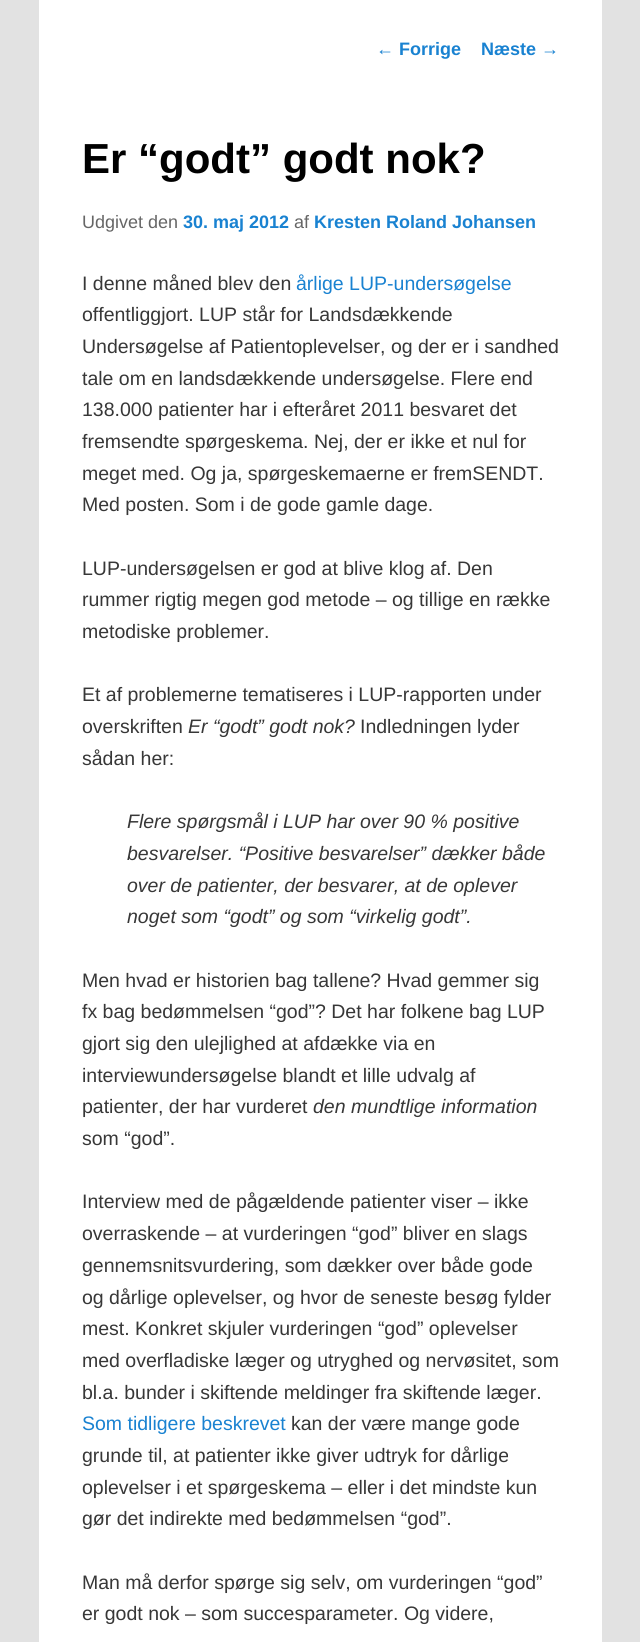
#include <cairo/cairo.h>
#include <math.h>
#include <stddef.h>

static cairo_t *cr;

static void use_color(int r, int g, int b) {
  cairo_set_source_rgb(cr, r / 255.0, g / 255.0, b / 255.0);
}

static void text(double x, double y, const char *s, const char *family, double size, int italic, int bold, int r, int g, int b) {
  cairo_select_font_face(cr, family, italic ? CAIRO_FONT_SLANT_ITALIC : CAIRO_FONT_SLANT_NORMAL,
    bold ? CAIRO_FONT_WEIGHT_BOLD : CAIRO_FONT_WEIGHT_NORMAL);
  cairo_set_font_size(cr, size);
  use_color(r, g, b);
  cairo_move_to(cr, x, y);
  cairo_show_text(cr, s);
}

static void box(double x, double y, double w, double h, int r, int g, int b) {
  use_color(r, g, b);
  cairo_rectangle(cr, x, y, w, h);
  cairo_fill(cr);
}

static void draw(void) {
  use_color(226, 226, 226);
  cairo_paint(cr);
  box(39, 0, 563, 1642, 255, 255, 255);
  text(376, 55, "←", "Liberation Sans", 18, 0, 0, 25, 130, 209);
  text(399, 55, "Forrige", "Liberation Sans", 18, 0, 1, 25, 130, 209);
  text(481, 55, "Næste", "Liberation Sans", 18, 0, 1, 25, 130, 209);
  text(541, 55, "→", "Liberation Sans", 18, 0, 0, 25, 130, 209);
  text(82, 173, "Er “godt” godt nok?", "Liberation Sans", 42, 0, 1, 0, 0, 0);
  text(82, 228, "Udgivet den", "Liberation Sans", 18, 0, 0, 102, 102, 102);
  text(183, 228, "30. maj 2012", "Liberation Sans", 18, 0, 1, 25, 130, 209);
  text(294, 228, "af", "Liberation Sans", 18, 0, 0, 102, 102, 102);
  text(314, 228, "Kresten Roland Johansen", "Liberation Sans", 18, 0, 1, 25, 130, 209);
  text(82, 290, "I denne måned blev den", "Liberation Sans", 19.5, 0, 0, 55, 55, 55);
  text(296, 290, "årlige LUP-undersøgelse", "Liberation Sans", 19.5, 0, 0, 25, 130, 209);
  text(82, 321, "offentliggjort. LUP står for Landsdækkende", "Liberation Sans", 19.5, 0, 0, 55, 55, 55);
  text(82, 353, "Undersøgelse af Patientoplevelser, og der er i sandhed", "Liberation Sans", 19.5, 0, 0, 55, 55, 55);
  text(82, 385, "tale om en landsdækkende undersøgelse. Flere end", "Liberation Sans", 19.5, 0, 0, 55, 55, 55);
  text(82, 416, "138.000 patienter har i efteråret 2011 besvaret det", "Liberation Sans", 19.5, 0, 0, 55, 55, 55);
  text(82, 448, "fremsendte spørgeskema. Nej, der er ikke et nul for", "Liberation Sans", 19.5, 0, 0, 55, 55, 55);
  text(82, 480, "meget med. Og ja, spørgeskemaerne er fremSENDT.", "Liberation Sans", 19.5, 0, 0, 55, 55, 55);
  text(82, 511, "Med posten. Som i de gode gamle dage.", "Liberation Sans", 19.5, 0, 0, 55, 55, 55);
  text(82, 575, "LUP-undersøgelsen er god at blive klog af. Den", "Liberation Sans", 19.5, 0, 0, 55, 55, 55);
  text(82, 606, "rummer rigtig megen god metode – og tillige en række", "Liberation Sans", 19.5, 0, 0, 55, 55, 55);
  text(82, 638, "metodiske problemer.", "Liberation Sans", 19.5, 0, 0, 55, 55, 55);
  text(82, 701, "Et af problemerne tematiseres i LUP-rapporten under", "Liberation Sans", 19.5, 0, 0, 55, 55, 55);
  text(82, 733, "overskriften", "Liberation Sans", 19.5, 0, 0, 55, 55, 55);
  text(188, 733, "Er “godt” godt nok?", "Liberation Sans", 19.5, 1, 0, 55, 55, 55);
  text(360, 733, "Indledningen lyder", "Liberation Sans", 19.5, 0, 0, 55, 55, 55);
  text(82, 765, "sådan her:", "Liberation Sans", 19.5, 0, 0, 55, 55, 55);
  text(127, 828, "Flere spørgsmål i LUP har over 90 % positive", "Liberation Sans", 19.5, 1, 0, 55, 55, 55);
  text(127, 860, "besvarelser. “Positive besvarelser” dækker både", "Liberation Sans", 19.5, 1, 0, 55, 55, 55);
  text(127, 892, "over de patienter, der besvarer, at de oplever", "Liberation Sans", 19.5, 1, 0, 55, 55, 55);
  text(127, 923, "noget som “godt” og som “virkelig godt”.", "Liberation Sans", 19.5, 1, 0, 55, 55, 55);
  text(82, 987, "Men hvad er historien bag tallene? Hvad gemmer sig", "Liberation Sans", 19.5, 0, 0, 55, 55, 55);
  text(82, 1018, "fx bag bedømmelsen “god”? Det har folkene bag LUP", "Liberation Sans", 19.5, 0, 0, 55, 55, 55);
  text(82, 1050, "gjort sig den ulejlighed at afdække via en", "Liberation Sans", 19.5, 0, 0, 55, 55, 55);
  text(82, 1082, "interviewundersøgelse blandt et lille udvalg af", "Liberation Sans", 19.5, 0, 0, 55, 55, 55);
  text(82, 1113, "patienter, der har vurderet", "Liberation Sans", 19.5, 0, 0, 55, 55, 55);
  text(313, 1113, "den mundtlige information", "Liberation Sans", 19.5, 1, 0, 55, 55, 55);
  text(82, 1145, "som “god”.", "Liberation Sans", 19.5, 0, 0, 55, 55, 55);
  text(82, 1208, "Interview med de pågældende patienter viser – ikke", "Liberation Sans", 19.5, 0, 0, 55, 55, 55);
  text(82, 1240, "overraskende – at vurderingen “god” bliver en slags", "Liberation Sans", 19.5, 0, 0, 55, 55, 55);
  text(82, 1272, "gennemsnitsvurdering, som dækker over både gode", "Liberation Sans", 19.5, 0, 0, 55, 55, 55);
  text(82, 1304, "og dårlige oplevelser, og hvor de seneste besøg fylder", "Liberation Sans", 19.5, 0, 0, 55, 55, 55);
  text(82, 1335, "mest. Konkret skjuler vurderingen “god” oplevelser", "Liberation Sans", 19.5, 0, 0, 55, 55, 55);
  text(82, 1367, "med overfladiske læger og utryghed og nervøsitet, som", "Liberation Sans", 19.5, 0, 0, 55, 55, 55);
  text(82, 1399, "bl.a. bunder i skiftende meldinger fra skiftende læger.", "Liberation Sans", 19.5, 0, 0, 55, 55, 55);
  text(82, 1430, "Som tidligere beskrevet", "Liberation Sans", 19.5, 0, 0, 25, 130, 209);
  text(291, 1430, "kan der være mange gode", "Liberation Sans", 19.5, 0, 0, 55, 55, 55);
  text(82, 1462, "grunde til, at patienter ikke giver udtryk for dårlige", "Liberation Sans", 19.5, 0, 0, 55, 55, 55);
  text(82, 1494, "oplevelser i et spørgeskema – eller i det mindste kun", "Liberation Sans", 19.5, 0, 0, 55, 55, 55);
  text(82, 1525, "gør det indirekte med bedømmelsen “god”.", "Liberation Sans", 19.5, 0, 0, 55, 55, 55);
  text(82, 1589, "Man må derfor spørge sig selv, om vurderingen “god”", "Liberation Sans", 19.5, 0, 0, 55, 55, 55);
  text(82, 1620, "er godt nok – som succesparameter. Og videre,", "Liberation Sans", 19.5, 0, 0, 55, 55, 55);
}

int main(void) {
  cairo_surface_t *surface = cairo_image_surface_create(CAIRO_FORMAT_RGB24, 640, 1642);
  cr = cairo_create(surface);
  cairo_font_options_t *options = cairo_font_options_create();
  cairo_font_options_set_hint_metrics(options, CAIRO_HINT_METRICS_OFF);
  cairo_font_options_set_hint_style(options, CAIRO_HINT_STYLE_NONE);
  cairo_set_font_options(cr, options);
  cairo_set_miter_limit(cr, 4);
  draw();
  cairo_surface_write_to_png(surface, "out.png");
  cairo_font_options_destroy(options);
  cairo_destroy(cr);
  cairo_surface_destroy(surface);
  return 0;
}
